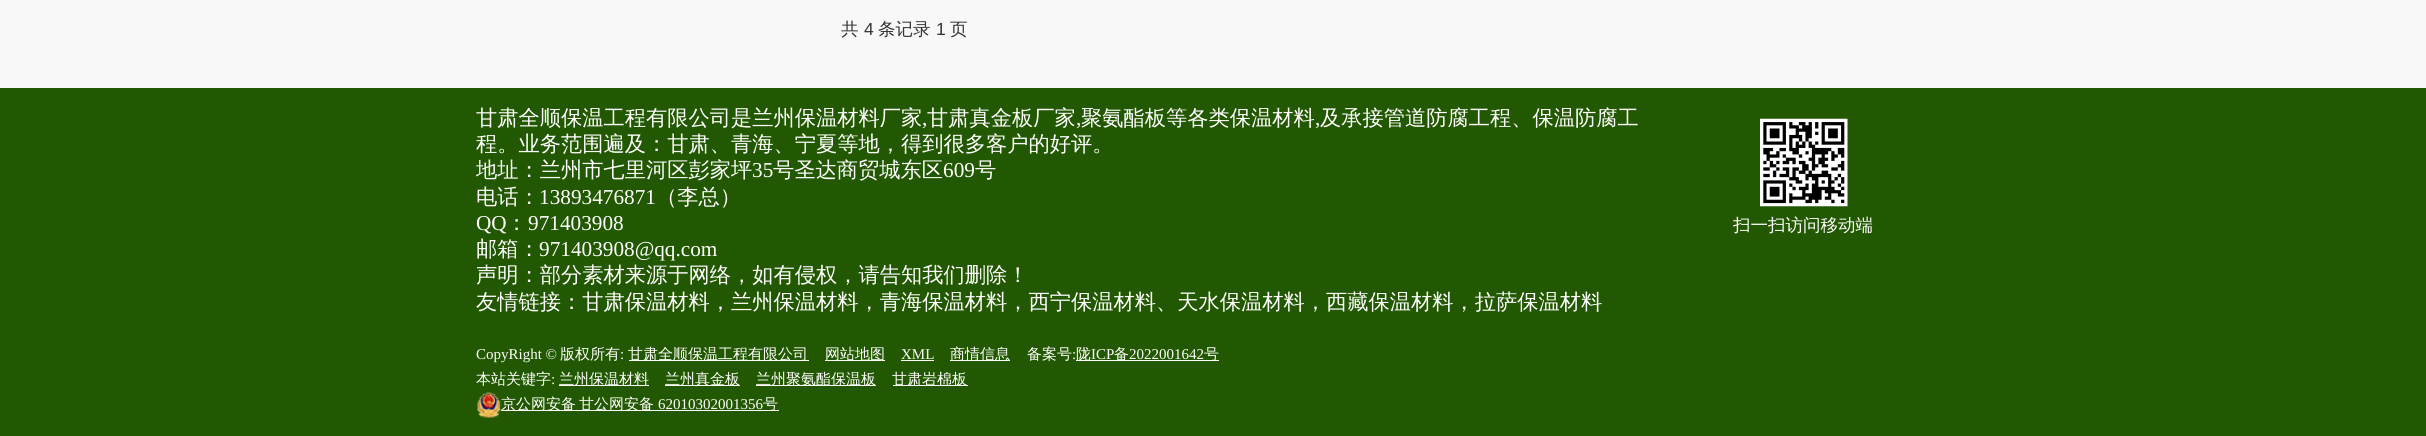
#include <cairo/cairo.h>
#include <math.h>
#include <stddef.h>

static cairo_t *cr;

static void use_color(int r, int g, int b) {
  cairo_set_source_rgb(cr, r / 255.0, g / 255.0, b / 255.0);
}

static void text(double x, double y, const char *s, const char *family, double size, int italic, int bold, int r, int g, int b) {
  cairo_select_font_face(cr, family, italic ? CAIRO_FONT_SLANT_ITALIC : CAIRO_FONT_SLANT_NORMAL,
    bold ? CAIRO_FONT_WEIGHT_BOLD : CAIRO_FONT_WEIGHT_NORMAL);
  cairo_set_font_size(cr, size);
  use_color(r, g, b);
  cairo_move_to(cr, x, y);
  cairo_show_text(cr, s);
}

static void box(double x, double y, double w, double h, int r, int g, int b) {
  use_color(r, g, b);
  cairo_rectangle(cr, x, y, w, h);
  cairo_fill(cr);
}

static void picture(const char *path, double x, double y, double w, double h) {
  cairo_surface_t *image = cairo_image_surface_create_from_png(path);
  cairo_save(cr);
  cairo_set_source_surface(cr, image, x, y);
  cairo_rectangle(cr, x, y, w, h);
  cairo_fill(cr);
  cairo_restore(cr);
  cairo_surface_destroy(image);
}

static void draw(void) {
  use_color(248, 248, 248);
  cairo_paint(cr);
  box(0, 88, 2426, 348, 34, 88, 1);
  box(629, 360, 180, 1, 255, 255, 255);
  box(825, 360, 60, 1, 255, 255, 255);
  box(901, 360, 33, 1, 255, 255, 255);
  box(950, 360, 60, 1, 255, 255, 255);
  box(1076, 360, 143, 1, 255, 255, 255);
  box(559, 385, 90, 1, 255, 255, 255);
  box(665, 385, 75, 1, 255, 255, 255);
  box(756, 385, 120, 1, 255, 255, 255);
  box(893, 385, 75, 1, 255, 255, 255);
  picture("img_01.png", 477, 392, 24, 26);
  box(501, 410, 278, 1, 255, 255, 255);
  picture("img_02.png", 1760, 118, 88, 89);
  text(841, 35, "共", "WenQuanYi Zen Hei Medium", 17.5, 0, 0, 51, 51, 51);
  text(864, 35, "4", "Liberation Sans", 17.5, 0, 0, 51, 51, 51);
  text(878, 35, "条记录", "WenQuanYi Zen Hei Medium", 17.5, 0, 0, 51, 51, 51);
  text(936, 35, "1", "Liberation Sans", 17.5, 0, 0, 51, 51, 51);
  text(950, 35, "页", "WenQuanYi Zen Hei Medium", 17.5, 0, 0, 51, 51, 51);
  text(476, 125, "甘肃全顺保温工程有限公司是兰州保温材料厂家", "WenQuanYi Zen Hei Medium", 21.25, 0, 0, 255, 255, 255);
  text(922, 125, ",", "Liberation Serif", 21.25, 0, 0, 255, 255, 255);
  text(927, 125, "甘肃真金板厂家", "WenQuanYi Zen Hei Medium", 21.25, 0, 0, 255, 255, 255);
  text(1076, 125, ",", "Liberation Serif", 21.25, 0, 0, 255, 255, 255);
  text(1081, 125, "聚氨酯板等各类保温材料", "WenQuanYi Zen Hei Medium", 21.25, 0, 0, 255, 255, 255);
  text(1315, 125, ",", "Liberation Serif", 21.25, 0, 0, 255, 255, 255);
  text(1320, 125, "及承接管道防腐工程、保温防腐工", "WenQuanYi Zen Hei Medium", 21.25, 0, 0, 255, 255, 255);
  text(476, 151, "程。业务范围遍及：甘肃、青海、宁夏等地，得到很多客户的好评。", "WenQuanYi Zen Hei Medium", 21.25, 0, 0, 255, 255, 255);
  text(476, 177, "地址：兰州市七里河区彭家坪", "WenQuanYi Zen Hei Medium", 21.25, 0, 0, 255, 255, 255);
  text(752, 177, "35", "Liberation Serif", 21.25, 0, 0, 255, 255, 255);
  text(773, 177, "号圣达商贸城东区", "WenQuanYi Zen Hei Medium", 21.25, 0, 0, 255, 255, 255);
  text(943, 177, "609", "Liberation Serif", 21.25, 0, 0, 255, 255, 255);
  text(975, 177, "号", "WenQuanYi Zen Hei Medium", 21.25, 0, 0, 255, 255, 255);
  text(476, 204, "电话：", "WenQuanYi Zen Hei Medium", 21.25, 0, 0, 255, 255, 255);
  text(539, 204, "13893476871", "Liberation Serif", 21.25, 0, 0, 255, 255, 255);
  text(656, 204, "（李总）", "WenQuanYi Zen Hei Medium", 21.25, 0, 0, 255, 255, 255);
  text(476, 230, "QQ", "Liberation Serif", 21.25, 0, 0, 255, 255, 255);
  text(506, 230, "：", "WenQuanYi Zen Hei Medium", 21.25, 0, 0, 255, 255, 255);
  text(528, 230, "971403908", "Liberation Serif", 21.25, 0, 0, 255, 255, 255);
  text(476, 256, "邮箱：", "WenQuanYi Zen Hei Medium", 21.25, 0, 0, 255, 255, 255);
  text(539, 256, "971403908@qq.com", "Liberation Serif", 21.25, 0, 0, 255, 255, 255);
  text(476, 282, "声明：部分素材来源于网络，如有侵权，请告知我们删除！", "WenQuanYi Zen Hei Medium", 21.25, 0, 0, 255, 255, 255);
  text(476, 309, "友情链接：甘肃保温材料，兰州保温材料，青海保温材料，西宁保温材料、天水保温材料，西藏保温材料，拉萨保温材料", "WenQuanYi Zen Hei Medium", 21.25, 0, 0, 255, 255, 255);
  text(476, 359, "CopyRight ©", "Liberation Serif", 15, 0, 0, 255, 255, 255);
  text(560, 359, "版权所有", "WenQuanYi Zen Hei Medium", 15, 0, 0, 255, 255, 255);
  text(620, 359, ":", "Liberation Serif", 15, 0, 0, 255, 255, 255);
  text(628, 359, "甘肃全顺保温工程有限公司", "WenQuanYi Zen Hei Medium", 15, 0, 0, 255, 255, 255);
  text(825, 359, "网站地图", "WenQuanYi Zen Hei Medium", 15, 0, 0, 255, 255, 255);
  text(901, 359, "XML", "Liberation Serif", 15, 0, 0, 255, 255, 255);
  text(950, 359, "商情信息", "WenQuanYi Zen Hei Medium", 15, 0, 0, 255, 255, 255);
  text(1027, 359, "备案号", "WenQuanYi Zen Hei Medium", 15, 0, 0, 255, 255, 255);
  text(1072, 359, ":", "Liberation Serif", 15, 0, 0, 255, 255, 255);
  text(1076, 359, "陇", "WenQuanYi Zen Hei Medium", 15, 0, 0, 255, 255, 255);
  text(1091, 359, "ICP", "Liberation Serif", 15, 0, 0, 255, 255, 255);
  text(1114, 359, "备", "WenQuanYi Zen Hei Medium", 15, 0, 0, 255, 255, 255);
  text(1129, 359, "2022001642", "Liberation Serif", 15, 0, 0, 255, 255, 255);
  text(1204, 359, "号", "WenQuanYi Zen Hei Medium", 15, 0, 0, 255, 255, 255);
  text(476, 384, "本站关键字", "WenQuanYi Zen Hei Medium", 15, 0, 0, 255, 255, 255);
  text(551, 384, ":", "Liberation Serif", 15, 0, 0, 255, 255, 255);
  text(559, 384, "兰州保温材料", "WenQuanYi Zen Hei Medium", 15, 0, 0, 255, 255, 255);
  text(665, 384, "兰州真金板", "WenQuanYi Zen Hei Medium", 15, 0, 0, 255, 255, 255);
  text(756, 384, "兰州聚氨酯保温板", "WenQuanYi Zen Hei Medium", 15, 0, 0, 255, 255, 255);
  text(892, 384, "甘肃岩棉板", "WenQuanYi Zen Hei Medium", 15, 0, 0, 255, 255, 255);
  text(501, 409, "京公网安备", "WenQuanYi Zen Hei Medium", 15, 0, 0, 255, 255, 255);
  text(579, 409, "甘公网安备", "WenQuanYi Zen Hei Medium", 15, 0, 0, 255, 255, 255);
  text(658, 409, "62010302001356", "Liberation Serif", 15, 0, 0, 255, 255, 255);
  text(763, 409, "号", "WenQuanYi Zen Hei Medium", 15, 0, 0, 255, 255, 255);
  text(1733, 231, "扫一扫访问移动端", "WenQuanYi Zen Hei Medium", 17.5, 0, 0, 255, 255, 255);
}

int main(void) {
  cairo_surface_t *surface = cairo_image_surface_create(CAIRO_FORMAT_RGB24, 2426, 436);
  cr = cairo_create(surface);
  cairo_font_options_t *options = cairo_font_options_create();
  cairo_font_options_set_hint_metrics(options, CAIRO_HINT_METRICS_OFF);
  cairo_font_options_set_hint_style(options, CAIRO_HINT_STYLE_NONE);
  cairo_set_font_options(cr, options);
  cairo_set_miter_limit(cr, 4);
  draw();
  cairo_surface_write_to_png(surface, "out.png");
  cairo_font_options_destroy(options);
  cairo_destroy(cr);
  cairo_surface_destroy(surface);
  return 0;
}
